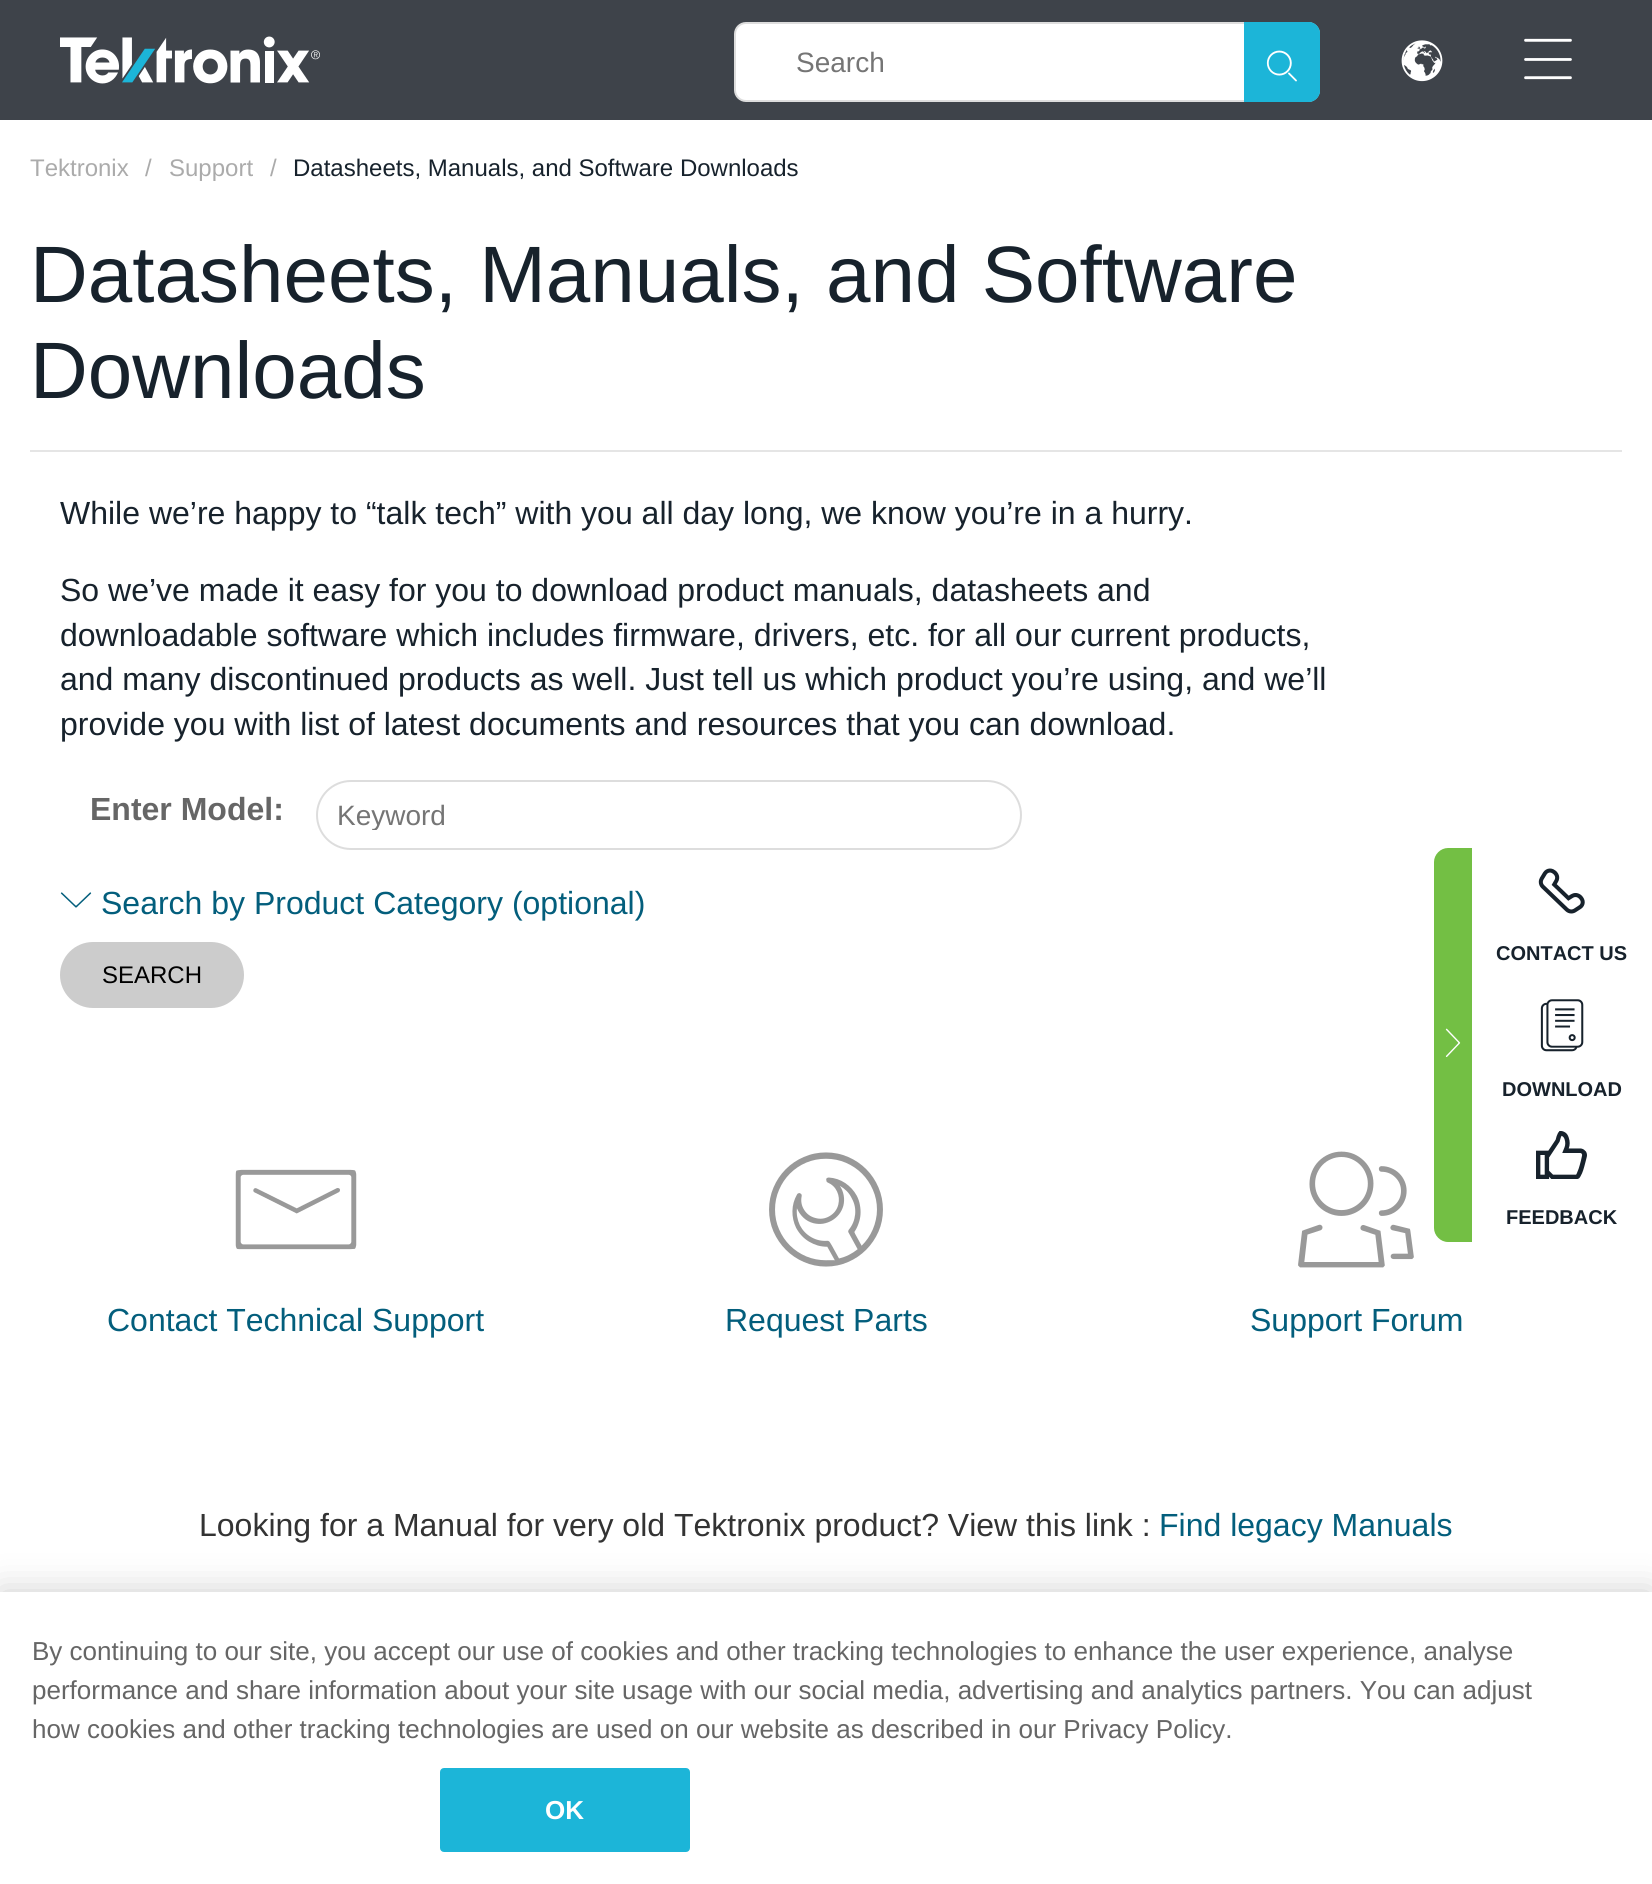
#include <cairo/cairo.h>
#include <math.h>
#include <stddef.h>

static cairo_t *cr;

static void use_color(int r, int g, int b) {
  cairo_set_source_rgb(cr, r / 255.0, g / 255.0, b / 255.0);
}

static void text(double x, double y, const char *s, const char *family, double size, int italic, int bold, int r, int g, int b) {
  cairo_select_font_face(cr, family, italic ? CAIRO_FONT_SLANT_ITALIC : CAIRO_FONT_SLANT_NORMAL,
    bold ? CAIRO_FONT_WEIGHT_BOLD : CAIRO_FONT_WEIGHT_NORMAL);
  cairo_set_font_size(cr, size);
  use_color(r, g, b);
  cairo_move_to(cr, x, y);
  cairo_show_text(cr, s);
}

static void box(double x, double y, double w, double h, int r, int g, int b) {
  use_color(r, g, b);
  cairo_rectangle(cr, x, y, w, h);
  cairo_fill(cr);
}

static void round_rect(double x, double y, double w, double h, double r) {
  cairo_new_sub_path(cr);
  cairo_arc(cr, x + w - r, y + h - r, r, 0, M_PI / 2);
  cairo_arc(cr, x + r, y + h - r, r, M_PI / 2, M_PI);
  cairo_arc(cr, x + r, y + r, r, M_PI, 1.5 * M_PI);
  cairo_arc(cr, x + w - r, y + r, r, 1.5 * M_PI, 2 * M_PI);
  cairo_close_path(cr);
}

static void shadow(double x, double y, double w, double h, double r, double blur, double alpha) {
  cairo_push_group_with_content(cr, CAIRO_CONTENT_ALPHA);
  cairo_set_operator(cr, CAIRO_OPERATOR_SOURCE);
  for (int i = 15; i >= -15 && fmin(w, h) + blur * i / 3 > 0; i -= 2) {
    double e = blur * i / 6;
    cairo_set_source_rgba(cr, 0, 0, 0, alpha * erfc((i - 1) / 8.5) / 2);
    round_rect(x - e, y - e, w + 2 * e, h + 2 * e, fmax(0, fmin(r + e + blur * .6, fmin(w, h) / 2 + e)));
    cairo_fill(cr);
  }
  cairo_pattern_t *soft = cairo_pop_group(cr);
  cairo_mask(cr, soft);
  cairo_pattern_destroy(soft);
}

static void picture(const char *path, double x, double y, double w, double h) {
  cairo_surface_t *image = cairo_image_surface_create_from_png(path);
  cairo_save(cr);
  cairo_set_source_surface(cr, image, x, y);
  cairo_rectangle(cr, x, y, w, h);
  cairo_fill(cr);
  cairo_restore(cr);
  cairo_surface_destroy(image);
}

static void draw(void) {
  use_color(255, 255, 255);
  cairo_paint(cr);
  box(0, 0, 1652, 120, 62, 67, 74);
  picture("img_01.png", 60, 36, 260, 48);
  use_color(255, 255, 255);
  round_rect(735, 23, 584, 78, 11);
  cairo_fill_preserve(cr);
  use_color(221, 221, 221);
  cairo_stroke(cr);
  use_color(28, 181, 216);
  cairo_new_path(cr);
  cairo_move_to(cr, 1244, 22);
  cairo_line_to(cr, 1308, 22);
  cairo_curve_to(cr, 1314.5, 22, 1320, 27.5, 1320, 34);
  cairo_line_to(cr, 1320, 90);
  cairo_curve_to(cr, 1320, 96.5, 1314.5, 102, 1308, 102);
  cairo_line_to(cr, 1244, 102);
  cairo_close_path(cr);
  cairo_fill(cr);
  picture("img_02.png", 1266, 50, 31, 32);
  cairo_set_fill_rule(cr, CAIRO_FILL_RULE_EVEN_ODD);
  cairo_new_path(cr);
  cairo_move_to(cr, 1250, 22);
  cairo_line_to(cr, 1308, 22);
  cairo_curve_to(cr, 1315, 22, 1320, 27, 1320, 34);
  cairo_line_to(cr, 1320, 90);
  cairo_curve_to(cr, 1320, 97, 1315, 102, 1308, 102);
  cairo_line_to(cr, 1250, 102);
  cairo_close_path(cr);
  cairo_move_to(cr, 1250, 24);
  cairo_line_to(cr, 1308, 24);
  cairo_curve_to(cr, 1314, 24, 1318, 28, 1318, 34);
  cairo_line_to(cr, 1318, 90);
  cairo_curve_to(cr, 1318, 96, 1314, 100, 1308, 100);
  cairo_line_to(cr, 1250, 100);
  cairo_close_path(cr);
  cairo_fill(cr);
  picture("img_03.png", 1401, 40, 42, 42);
  picture("img_04.png", 1524, 38, 48, 42);
  box(30, 450, 1592, 2, 229, 229, 229);
  round_rect(317, 781, 704, 68, 34);
  use_color(221, 221, 221);
  cairo_stroke(cr);
  picture("img_05.png", 60, 892, 32, 16);
  use_color(204, 204, 204);
  round_rect(60, 942, 184, 66, 33);
  cairo_fill(cr);
  picture("img_06.png", 235, 1169, 122, 81);
  picture("img_07.png", 769, 1152, 114, 115);
  picture("img_08.png", 1298, 1151, 116, 117);
  use_color(115, 191, 68);
  cairo_new_path(cr);
  cairo_move_to(cr, 1448, 848);
  cairo_line_to(cr, 1472, 848);
  cairo_line_to(cr, 1472, 1242);
  cairo_line_to(cr, 1448, 1242);
  cairo_curve_to(cr, 1440.5, 1242, 1434, 1235.5, 1434, 1228);
  cairo_line_to(cr, 1434, 862);
  cairo_curve_to(cr, 1434, 854.5, 1440.5, 848, 1448, 848);
  cairo_close_path(cr);
  cairo_fill(cr);
  picture("img_09.png", 1445, 1028, 16, 29);
  picture("img_10.png", 1538, 868, 47, 46);
  picture("img_11.png", 1540, 999, 44, 53);
  picture("img_12.png", 1536, 1131, 51, 48);
  use_color(0, 0, 0);
  shadow(0, 1592, 1652, 292, 0, 18, 0.2);
  box(0, 1592, 1652, 292, 255, 255, 255);
  use_color(28, 181, 216);
  round_rect(441, 1769, 248, 82, 3);
  cairo_fill_preserve(cr);
  cairo_stroke(cr);
  text(796, 72, "Search", "Liberation Sans", 28, 0, 0, 117, 117, 117);
  text(30, 176, "Tektronix", "Liberation Sans", 24, 0, 0, 171, 171, 171);
  text(145, 176, "/", "Liberation Sans", 24, 0, 0, 171, 171, 171);
  text(169, 176, "Support", "Liberation Sans", 24, 0, 0, 171, 171, 171);
  text(270, 176, "/", "Liberation Sans", 24, 0, 0, 171, 171, 171);
  text(293, 176, "Datasheets, Manuals, and Software Downloads", "Liberation Sans", 24, 0, 0, 23, 34, 44);
  text(30, 302, "Datasheets, Manuals, and Software", "Liberation Sans", 80, 0, 0, 23, 34, 44);
  text(30, 398, "Downloads", "Liberation Sans", 80, 0, 0, 23, 34, 44);
  text(60, 524, "While we’re happy to “talk tech” with you all day long, we know you’re in a hurry.", "Liberation Sans", 32, 0, 0, 23, 34, 44);
  text(60, 601, "So we’ve made it easy for you to download product manuals, datasheets and", "Liberation Sans", 32, 0, 0, 23, 34, 44);
  text(60, 646, "downloadable software which includes firmware, drivers, etc. for all our current products,", "Liberation Sans", 32, 0, 0, 23, 34, 44);
  text(60, 690, "and many discontinued products as well. Just tell us which product you’re using, and we’ll", "Liberation Sans", 32, 0, 0, 23, 34, 44);
  text(60, 735, "provide you with list of latest documents and resources that you can download.", "Liberation Sans", 32, 0, 0, 23, 34, 44);
  text(90, 820, "Enter Model:", "Liberation Sans", 32, 0, 1, 102, 102, 102);
  cairo_save(cr);
  cairo_set_fill_rule(cr, CAIRO_FILL_RULE_WINDING);
  cairo_rectangle(cr, 338, 798, 662, 32);
  cairo_clip(cr);
  text(337, 825, "Keyword", "Liberation Sans", 28, 0, 0, 117, 117, 117);
  cairo_restore(cr);
  text(101, 914, "Search by Product Category (optional)", "Liberation Sans", 32, 0, 0, 3, 94, 124);
  text(102, 983, "SEARCH", "Liberation Sans", 24, 0, 0, 0, 0, 0);
  text(107, 1331, "Contact Technical Support", "Liberation Sans", 32, 0, 0, 3, 94, 124);
  text(725, 1331, "Request Parts", "Liberation Sans", 32, 0, 0, 3, 94, 124);
  text(1250, 1331, "Support Forum", "Liberation Sans", 32, 0, 0, 3, 94, 124);
  text(199, 1536, "Looking for a Manual for very old Tektronix product? View this link :", "Liberation Sans", 32, 0, 0, 51, 51, 51);
  text(1159, 1536, "Find legacy Manuals", "Liberation Sans", 32, 0, 0, 3, 94, 124);
  text(1496, 960, "CONTACT US", "Liberation Sans", 20, 0, 1, 23, 34, 44);
  text(1502, 1096, "DOWNLOAD", "Liberation Sans", 20, 0, 1, 23, 34, 44);
  text(1506, 1224, "FEEDBACK", "Liberation Sans", 20, 0, 1, 23, 34, 44);
  text(32, 1660, "By continuing to our site, you accept our use of cookies and other tracking technologies to enhance the user experience, analyse", "Liberation Sans", 26.02, 0, 0, 102, 102, 102);
  text(32, 1699, "performance and share information about your site usage with our social media, advertising and analytics partners. You can adjust", "Liberation Sans", 26.02, 0, 0, 102, 102, 102);
  text(32, 1738, "how cookies and other tracking technologies are used on our website as described in our Privacy Policy.", "Liberation Sans", 26.02, 0, 0, 102, 102, 102);
  text(545, 1819, "OK", "Liberation Sans", 26.02, 0, 1, 255, 255, 255);
}

int main(void) {
  cairo_surface_t *surface = cairo_image_surface_create(CAIRO_FORMAT_RGB24, 1652, 1884);
  cr = cairo_create(surface);
  cairo_font_options_t *options = cairo_font_options_create();
  cairo_font_options_set_hint_metrics(options, CAIRO_HINT_METRICS_OFF);
  cairo_font_options_set_hint_style(options, CAIRO_HINT_STYLE_NONE);
  cairo_set_font_options(cr, options);
  cairo_set_miter_limit(cr, 4);
  draw();
  cairo_surface_write_to_png(surface, "out.png");
  cairo_font_options_destroy(options);
  cairo_destroy(cr);
  cairo_surface_destroy(surface);
  return 0;
}
